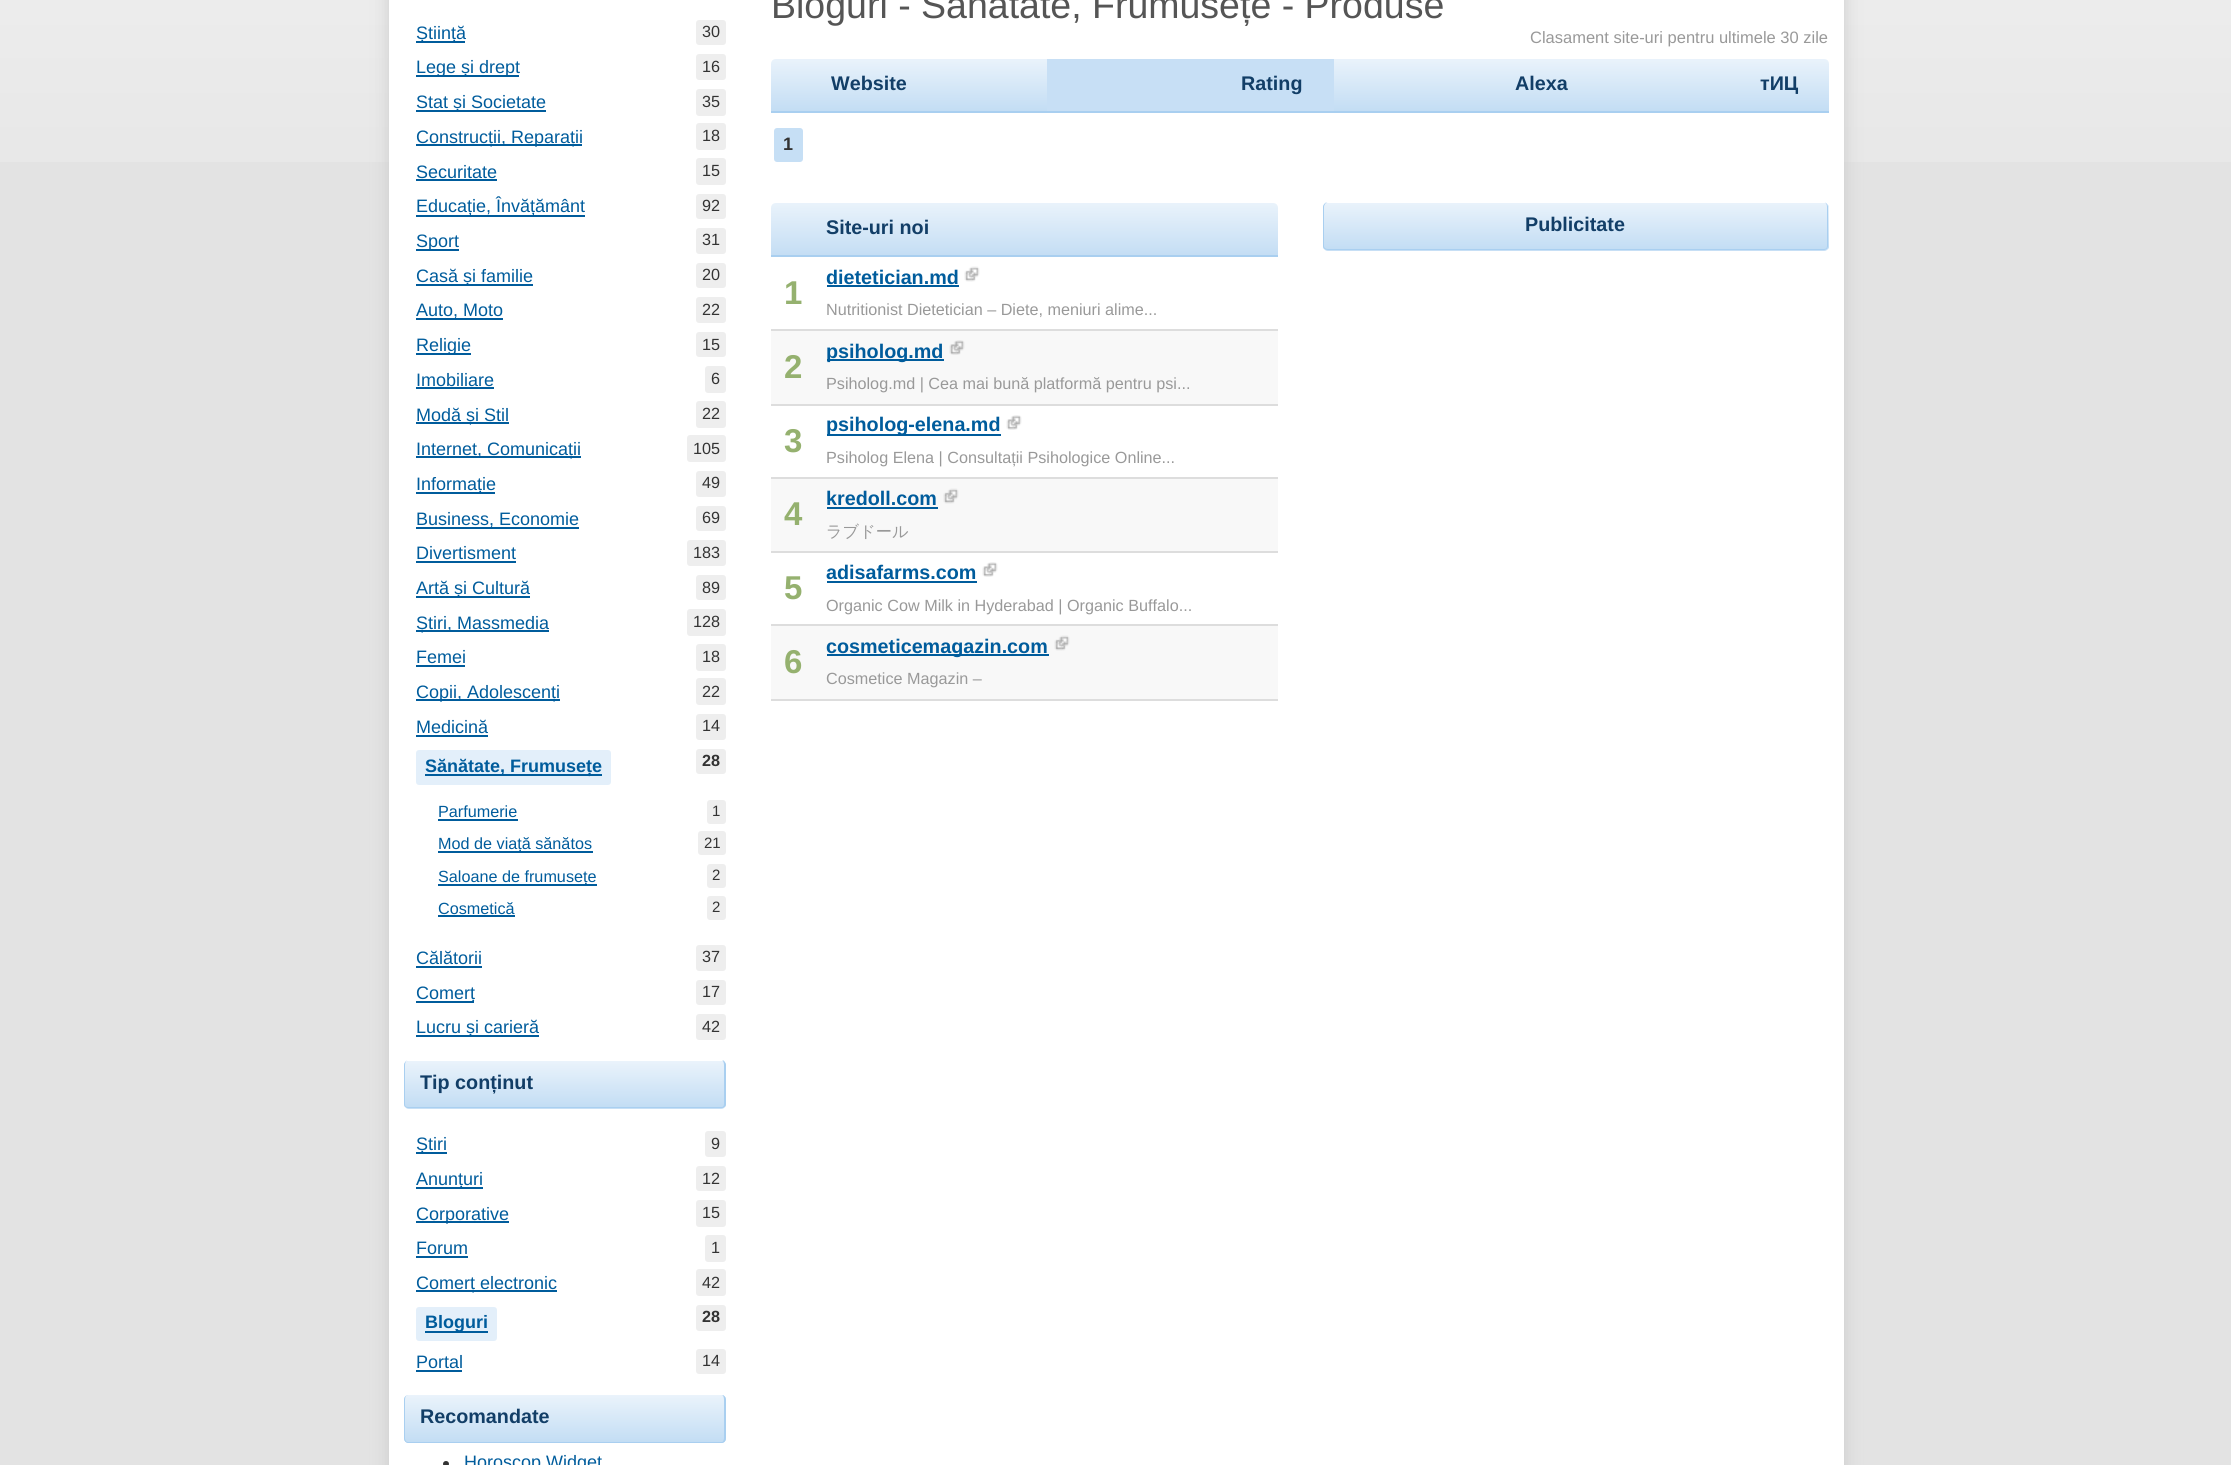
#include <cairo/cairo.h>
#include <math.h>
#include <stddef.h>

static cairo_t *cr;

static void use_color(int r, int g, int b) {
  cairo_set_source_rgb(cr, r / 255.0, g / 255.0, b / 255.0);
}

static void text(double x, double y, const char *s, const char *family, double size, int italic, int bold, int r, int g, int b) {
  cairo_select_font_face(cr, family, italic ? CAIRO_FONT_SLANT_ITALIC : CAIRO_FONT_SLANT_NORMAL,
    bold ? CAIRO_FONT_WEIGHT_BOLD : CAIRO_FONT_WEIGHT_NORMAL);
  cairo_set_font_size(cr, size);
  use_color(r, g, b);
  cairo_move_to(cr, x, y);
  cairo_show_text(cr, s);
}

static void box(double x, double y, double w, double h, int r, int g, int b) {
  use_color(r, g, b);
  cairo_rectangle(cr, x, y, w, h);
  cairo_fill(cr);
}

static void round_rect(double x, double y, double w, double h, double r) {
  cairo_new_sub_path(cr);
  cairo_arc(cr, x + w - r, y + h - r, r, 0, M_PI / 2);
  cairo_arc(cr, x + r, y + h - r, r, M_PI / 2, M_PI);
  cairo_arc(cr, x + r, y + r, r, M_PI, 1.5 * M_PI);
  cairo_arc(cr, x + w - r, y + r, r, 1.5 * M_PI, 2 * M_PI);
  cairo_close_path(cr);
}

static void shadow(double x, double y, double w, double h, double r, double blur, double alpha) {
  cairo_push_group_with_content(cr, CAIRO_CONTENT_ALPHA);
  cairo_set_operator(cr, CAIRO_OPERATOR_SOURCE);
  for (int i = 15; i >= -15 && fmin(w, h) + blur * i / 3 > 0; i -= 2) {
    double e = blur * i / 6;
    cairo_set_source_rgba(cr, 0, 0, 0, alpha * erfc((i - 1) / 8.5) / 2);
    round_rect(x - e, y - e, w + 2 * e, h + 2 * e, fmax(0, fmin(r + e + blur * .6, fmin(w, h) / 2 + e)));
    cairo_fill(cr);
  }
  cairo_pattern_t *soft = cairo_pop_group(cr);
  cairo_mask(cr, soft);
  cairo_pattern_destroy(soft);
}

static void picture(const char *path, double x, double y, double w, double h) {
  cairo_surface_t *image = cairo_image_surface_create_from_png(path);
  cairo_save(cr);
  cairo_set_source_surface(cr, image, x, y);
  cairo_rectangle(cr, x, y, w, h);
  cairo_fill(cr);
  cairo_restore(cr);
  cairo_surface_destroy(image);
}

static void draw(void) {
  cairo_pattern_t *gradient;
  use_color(227, 227, 227);
  cairo_paint(cr);
  picture("img_01.png", 0, 0, 2231, 162);
  use_color(204, 204, 204);
  shadow(389, -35, 1455, 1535, 8, 9, 1);
  box(389, 0, 1455, 1465, 255, 255, 255);
  box(416, 41, 49, 2, 0, 92, 156);
  use_color(238, 238, 238);
  round_rect(696, 20, 30, 25, 3);
  cairo_fill(cr);
  box(416, 75, 103, 2, 0, 92, 156);
  use_color(238, 238, 238);
  round_rect(696, 54, 30, 26, 3);
  cairo_fill(cr);
  box(416, 110, 130, 2, 0, 92, 156);
  use_color(238, 238, 238);
  round_rect(696, 89, 30, 27, 3);
  cairo_fill(cr);
  box(416, 144, 166, 2, 0, 92, 156);
  use_color(238, 238, 238);
  round_rect(696, 123, 30, 27, 3);
  cairo_fill(cr);
  box(416, 179, 81, 2, 0, 92, 156);
  use_color(238, 238, 238);
  round_rect(696, 158, 30, 27, 3);
  cairo_fill(cr);
  box(416, 215, 169, 2, 0, 92, 156);
  use_color(238, 238, 238);
  round_rect(696, 194, 30, 25, 3);
  cairo_fill(cr);
  box(416, 249, 43, 2, 0, 92, 156);
  use_color(238, 238, 238);
  round_rect(696, 228, 30, 26, 3);
  cairo_fill(cr);
  box(416, 284, 117, 2, 0, 92, 156);
  use_color(238, 238, 238);
  round_rect(696, 263, 30, 25, 3);
  cairo_fill(cr);
  box(416, 318, 87, 2, 0, 92, 156);
  use_color(238, 238, 238);
  round_rect(696, 297, 30, 26, 3);
  cairo_fill(cr);
  box(416, 353, 55, 2, 0, 92, 156);
  use_color(238, 238, 238);
  round_rect(696, 332, 30, 25, 3);
  cairo_fill(cr);
  box(416, 387, 78, 2, 0, 92, 156);
  use_color(238, 238, 238);
  round_rect(705, 366, 21, 27, 3);
  cairo_fill(cr);
  box(416, 422, 93, 2, 0, 92, 156);
  use_color(238, 238, 238);
  round_rect(696, 401, 30, 27, 3);
  cairo_fill(cr);
  box(416, 456, 165, 2, 0, 92, 156);
  use_color(238, 238, 238);
  round_rect(687, 435, 39, 27, 3);
  cairo_fill(cr);
  box(416, 492, 79, 2, 0, 92, 156);
  use_color(238, 238, 238);
  round_rect(696, 471, 30, 26, 3);
  cairo_fill(cr);
  box(416, 527, 163, 2, 0, 92, 156);
  use_color(238, 238, 238);
  round_rect(696, 506, 30, 25, 3);
  cairo_fill(cr);
  box(416, 561, 100, 2, 0, 92, 156);
  use_color(238, 238, 238);
  round_rect(687, 540, 39, 26, 3);
  cairo_fill(cr);
  box(416, 596, 114, 2, 0, 92, 156);
  use_color(238, 238, 238);
  round_rect(696, 575, 30, 25, 3);
  cairo_fill(cr);
  box(416, 630, 133, 2, 0, 92, 156);
  use_color(238, 238, 238);
  round_rect(687, 609, 39, 27, 3);
  cairo_fill(cr);
  box(416, 665, 49, 2, 0, 92, 156);
  use_color(238, 238, 238);
  round_rect(696, 644, 30, 27, 3);
  cairo_fill(cr);
  box(416, 699, 144, 2, 0, 92, 156);
  use_color(238, 238, 238);
  round_rect(696, 678, 30, 27, 3);
  cairo_fill(cr);
  box(416, 735, 72, 2, 0, 92, 156);
  use_color(238, 238, 238);
  round_rect(696, 714, 30, 26, 3);
  cairo_fill(cr);
  use_color(227, 239, 250);
  round_rect(416, 750, 195, 35, 3);
  cairo_fill(cr);
  box(425, 774, 177, 2, 0, 92, 156);
  use_color(238, 238, 238);
  round_rect(696, 749, 30, 25, 3);
  cairo_fill(cr);
  box(438, 819, 80, 2, 0, 92, 156);
  use_color(238, 238, 238);
  round_rect(707, 800, 19, 24, 3);
  cairo_fill(cr);
  box(438, 851, 155, 2, 0, 92, 156);
  use_color(238, 238, 238);
  round_rect(698, 831, 28, 24, 3);
  cairo_fill(cr);
  box(438, 884, 159, 2, 0, 92, 156);
  use_color(238, 238, 238);
  round_rect(707, 864, 19, 24, 3);
  cairo_fill(cr);
  box(438, 915, 77, 2, 0, 92, 156);
  use_color(238, 238, 238);
  round_rect(707, 896, 19, 24, 3);
  cairo_fill(cr);
  box(416, 966, 66, 2, 0, 92, 156);
  use_color(238, 238, 238);
  round_rect(696, 945, 30, 26, 3);
  cairo_fill(cr);
  box(416, 1001, 58, 2, 0, 92, 156);
  use_color(238, 238, 238);
  round_rect(696, 980, 30, 25, 3);
  cairo_fill(cr);
  box(416, 1035, 123, 2, 0, 92, 156);
  use_color(238, 238, 238);
  round_rect(696, 1014, 30, 26, 3);
  cairo_fill(cr);
  use_color(199, 223, 245);
  round_rect(404, 1061, 322, 48, 5);
  cairo_fill(cr);
  cairo_save(cr);
  round_rect(404, 1061, 322, 48, 5);
  cairo_clip(cr);
  gradient = cairo_pattern_create_linear(565, 1061, 565, 1107);
  cairo_pattern_add_color_stop_rgba(gradient, 0, 0.918, 0.953, 0.984, 1);
  cairo_pattern_add_color_stop_rgba(gradient, 1, 0.765, 0.867, 0.957, 1);
  cairo_set_source(cr, gradient);
  cairo_pattern_destroy(gradient);
  cairo_new_path(cr);
  cairo_move_to(cr, 409, 1061);
  cairo_line_to(cr, 721, 1061);
  cairo_curve_to(cr, 724, 1061, 726, 1063, 726, 1066);
  cairo_line_to(cr, 726, 1107);
  cairo_line_to(cr, 404, 1107);
  cairo_line_to(cr, 404, 1066);
  cairo_curve_to(cr, 404, 1063, 406, 1061, 409, 1061);
  cairo_close_path(cr);
  cairo_fill(cr);
  cairo_restore(cr);
  use_color(169, 207, 240);
  cairo_set_fill_rule(cr, CAIRO_FILL_RULE_EVEN_ODD);
  cairo_new_path(cr);
  cairo_move_to(cr, 408, 1060);
  cairo_line_to(cr, 722, 1060);
  cairo_curve_to(cr, 724, 1060, 726, 1063, 726, 1065);
  cairo_line_to(cr, 726, 1104);
  cairo_curve_to(cr, 726, 1106, 724, 1108, 722, 1108);
  cairo_line_to(cr, 408, 1108);
  cairo_curve_to(cr, 406, 1108, 404, 1106, 404, 1104);
  cairo_line_to(cr, 404, 1065);
  cairo_curve_to(cr, 404, 1063, 406, 1060, 408, 1060);
  cairo_close_path(cr);
  cairo_move_to(cr, 408, 1060);
  cairo_line_to(cr, 722, 1060);
  cairo_curve_to(cr, 723, 1060, 724, 1063, 724, 1065);
  cairo_line_to(cr, 724, 1104);
  cairo_curve_to(cr, 724, 1106, 723, 1107, 722, 1107);
  cairo_line_to(cr, 408, 1107);
  cairo_curve_to(cr, 406, 1107, 405, 1106, 405, 1104);
  cairo_line_to(cr, 405, 1065);
  cairo_curve_to(cr, 405, 1063, 406, 1060, 408, 1060);
  cairo_close_path(cr);
  cairo_fill(cr);
  box(416, 1152, 31, 2, 0, 92, 156);
  use_color(238, 238, 238);
  round_rect(705, 1131, 21, 26, 3);
  cairo_fill(cr);
  box(416, 1187, 67, 2, 0, 92, 156);
  use_color(238, 238, 238);
  round_rect(696, 1166, 30, 25, 3);
  cairo_fill(cr);
  box(416, 1221, 93, 2, 0, 92, 156);
  use_color(238, 238, 238);
  round_rect(696, 1200, 30, 27, 3);
  cairo_fill(cr);
  box(416, 1256, 52, 2, 0, 92, 156);
  use_color(238, 238, 238);
  round_rect(705, 1235, 21, 27, 3);
  cairo_fill(cr);
  box(416, 1290, 141, 2, 0, 92, 156);
  use_color(238, 238, 238);
  round_rect(696, 1269, 30, 27, 3);
  cairo_fill(cr);
  use_color(227, 239, 250);
  round_rect(416, 1307, 81, 34, 3);
  cairo_fill(cr);
  box(425, 1331, 63, 2, 0, 92, 156);
  use_color(238, 238, 238);
  round_rect(696, 1305, 30, 26, 3);
  cairo_fill(cr);
  box(416, 1370, 46, 2, 0, 92, 156);
  use_color(238, 238, 238);
  round_rect(696, 1349, 30, 25, 3);
  cairo_fill(cr);
  use_color(199, 223, 245);
  round_rect(404, 1395, 322, 48, 5);
  cairo_fill(cr);
  cairo_save(cr);
  cairo_set_fill_rule(cr, CAIRO_FILL_RULE_WINDING);
  round_rect(404, 1395, 322, 48, 5);
  cairo_clip(cr);
  gradient = cairo_pattern_create_linear(565, 1395, 565, 1442);
  cairo_pattern_add_color_stop_rgba(gradient, 0, 0.918, 0.953, 0.984, 1);
  cairo_pattern_add_color_stop_rgba(gradient, 1, 0.765, 0.867, 0.957, 1);
  cairo_set_source(cr, gradient);
  cairo_pattern_destroy(gradient);
  cairo_new_path(cr);
  cairo_move_to(cr, 409, 1395);
  cairo_line_to(cr, 721, 1395);
  cairo_curve_to(cr, 724, 1395, 726, 1397, 726, 1400);
  cairo_line_to(cr, 726, 1442);
  cairo_line_to(cr, 404, 1442);
  cairo_line_to(cr, 404, 1400);
  cairo_curve_to(cr, 404, 1397, 406, 1395, 409, 1395);
  cairo_close_path(cr);
  cairo_fill(cr);
  cairo_restore(cr);
  use_color(169, 207, 240);
  cairo_new_path(cr);
  cairo_move_to(cr, 408, 1395);
  cairo_line_to(cr, 722, 1395);
  cairo_curve_to(cr, 724, 1395, 726, 1397, 726, 1400);
  cairo_line_to(cr, 726, 1438);
  cairo_curve_to(cr, 726, 1441, 724, 1443, 722, 1443);
  cairo_line_to(cr, 408, 1443);
  cairo_curve_to(cr, 406, 1443, 404, 1441, 404, 1438);
  cairo_line_to(cr, 404, 1400);
  cairo_curve_to(cr, 404, 1397, 406, 1395, 408, 1395);
  cairo_close_path(cr);
  cairo_move_to(cr, 408, 1395);
  cairo_line_to(cr, 722, 1395);
  cairo_curve_to(cr, 723, 1395, 724, 1397, 724, 1400);
  cairo_line_to(cr, 724, 1438);
  cairo_curve_to(cr, 724, 1440, 723, 1442, 722, 1442);
  cairo_line_to(cr, 408, 1442);
  cairo_curve_to(cr, 406, 1442, 405, 1440, 405, 1438);
  cairo_line_to(cr, 405, 1400);
  cairo_curve_to(cr, 405, 1397, 406, 1395, 408, 1395);
  cairo_close_path(cr);
  cairo_fill(cr);
  use_color(51, 51, 51);
  cairo_arc(cr, 446, 1464, 3, 0, 2 * M_PI);
  cairo_fill(cr);
  gradient = cairo_pattern_create_linear(1300, 58, 1300, 111);
  cairo_pattern_add_color_stop_rgba(gradient, 0, 0.918, 0.953, 0.984, 1);
  cairo_pattern_add_color_stop_rgba(gradient, 1, 0.765, 0.867, 0.957, 1);
  cairo_set_source(cr, gradient);
  cairo_pattern_destroy(gradient);
  cairo_new_path(cr);
  cairo_move_to(cr, 776, 59);
  cairo_line_to(cr, 1824, 59);
  cairo_curve_to(cr, 1827, 59, 1829, 61, 1829, 64);
  cairo_line_to(cr, 1829, 111);
  cairo_line_to(cr, 771, 111);
  cairo_line_to(cr, 771, 64);
  cairo_curve_to(cr, 771, 61, 773, 59, 776, 59);
  cairo_close_path(cr);
  cairo_fill(cr);
  box(1047, 59, 287, 52, 199, 223, 245);
  box(771, 111, 1058, 2, 169, 207, 240);
  use_color(198, 223, 245);
  round_rect(774, 128, 29, 34, 3);
  cairo_fill(cr);
  gradient = cairo_pattern_create_linear(1025, 202, 1025, 257);
  cairo_pattern_add_color_stop_rgba(gradient, 0, 0.918, 0.953, 0.984, 1);
  cairo_pattern_add_color_stop_rgba(gradient, 1, 0.765, 0.867, 0.957, 1);
  cairo_set_source(cr, gradient);
  cairo_pattern_destroy(gradient);
  cairo_new_path(cr);
  cairo_move_to(cr, 776, 203);
  cairo_line_to(cr, 1273, 203);
  cairo_curve_to(cr, 1276, 203, 1278, 205, 1278, 208);
  cairo_line_to(cr, 1278, 257);
  cairo_line_to(cr, 771, 257);
  cairo_line_to(cr, 771, 208);
  cairo_curve_to(cr, 771, 205, 773, 203, 776, 203);
  cairo_close_path(cr);
  cairo_fill(cr);
  box(771, 255, 507, 2, 169, 207, 240);
  box(771, 329, 507, 2, 221, 221, 221);
  box(827, 285, 132, 2, 0, 92, 156);
  picture("img_02.png", 964, 266, 16, 16);
  box(771, 331, 507, 73, 248, 248, 248);
  box(771, 404, 507, 2, 221, 221, 221);
  box(827, 359, 117, 2, 0, 92, 156);
  picture("img_03.png", 949, 340, 16, 15);
  box(771, 477, 507, 2, 221, 221, 221);
  box(827, 434, 174, 2, 0, 92, 156);
  picture("img_04.png", 1006, 415, 16, 15);
  box(771, 479, 507, 72, 248, 248, 248);
  box(771, 551, 507, 2, 221, 221, 221);
  box(827, 507, 111, 2, 0, 92, 156);
  picture("img_05.png", 943, 488, 16, 16);
  box(771, 624, 507, 2, 221, 221, 221);
  box(827, 581, 150, 2, 0, 92, 156);
  picture("img_04.png", 982, 562, 16, 15);
  box(771, 626, 507, 73, 248, 248, 248);
  box(771, 699, 507, 2, 221, 221, 221);
  box(827, 654, 222, 2, 0, 92, 156);
  picture("img_06.png", 1054, 635, 16, 16);
  use_color(199, 223, 245);
  round_rect(1323, 203, 506, 48, 5);
  cairo_fill(cr);
  cairo_save(cr);
  cairo_set_fill_rule(cr, CAIRO_FILL_RULE_WINDING);
  round_rect(1323, 203, 506, 48, 5);
  cairo_clip(cr);
  gradient = cairo_pattern_create_linear(1576, 202, 1576, 249);
  cairo_pattern_add_color_stop_rgba(gradient, 0, 0.918, 0.953, 0.984, 1);
  cairo_pattern_add_color_stop_rgba(gradient, 1, 0.765, 0.867, 0.957, 1);
  cairo_set_source(cr, gradient);
  cairo_pattern_destroy(gradient);
  cairo_new_path(cr);
  cairo_move_to(cr, 1328, 203);
  cairo_line_to(cr, 1824, 203);
  cairo_curve_to(cr, 1827, 203, 1829, 205, 1829, 208);
  cairo_line_to(cr, 1829, 249);
  cairo_line_to(cr, 1323, 249);
  cairo_line_to(cr, 1323, 208);
  cairo_curve_to(cr, 1323, 205, 1325, 203, 1328, 203);
  cairo_close_path(cr);
  cairo_fill(cr);
  cairo_restore(cr);
  use_color(169, 207, 240);
  cairo_new_path(cr);
  cairo_move_to(cr, 1328, 202);
  cairo_line_to(cr, 1824, 202);
  cairo_curve_to(cr, 1826, 202, 1828, 205, 1828, 207);
  cairo_line_to(cr, 1828, 246);
  cairo_curve_to(cr, 1828, 248, 1826, 250, 1824, 250);
  cairo_line_to(cr, 1328, 250);
  cairo_curve_to(cr, 1325, 250, 1323, 248, 1323, 246);
  cairo_line_to(cr, 1323, 207);
  cairo_curve_to(cr, 1323, 205, 1325, 202, 1328, 202);
  cairo_close_path(cr);
  cairo_move_to(cr, 1328, 202);
  cairo_line_to(cr, 1824, 202);
  cairo_curve_to(cr, 1826, 202, 1827, 205, 1827, 207);
  cairo_line_to(cr, 1827, 246);
  cairo_curve_to(cr, 1827, 248, 1826, 249, 1824, 249);
  cairo_line_to(cr, 1328, 249);
  cairo_curve_to(cr, 1326, 249, 1324, 248, 1324, 246);
  cairo_line_to(cr, 1324, 207);
  cairo_curve_to(cr, 1324, 205, 1326, 202, 1328, 202);
  cairo_close_path(cr);
  cairo_fill(cr);
  text(416, 39, "Știință", "Liberation Sans", 18, 0, 0, 0, 92, 156);
  text(702, 37, "30", "Liberation Sans", 16.2, 0, 0, 51, 51, 51);
  text(416, 73, "Lege și drept", "Liberation Sans", 18, 0, 0, 0, 92, 156);
  text(702, 72, "16", "Liberation Sans", 16.2, 0, 0, 51, 51, 51);
  text(416, 108, "Stat și Societate", "Liberation Sans", 18, 0, 0, 0, 92, 156);
  text(702, 107, "35", "Liberation Sans", 16.2, 0, 0, 51, 51, 51);
  text(416, 143, "Construcții, Reparații", "Liberation Sans", 18, 0, 0, 0, 92, 156);
  text(702, 141, "18", "Liberation Sans", 16.2, 0, 0, 51, 51, 51);
  text(416, 178, "Securitate", "Liberation Sans", 18, 0, 0, 0, 92, 156);
  text(702, 176, "15", "Liberation Sans", 16.2, 0, 0, 51, 51, 51);
  text(416, 212, "Educație, Învățământ", "Liberation Sans", 18, 0, 0, 0, 92, 156);
  text(702, 211, "92", "Liberation Sans", 16.2, 0, 0, 51, 51, 51);
  text(416, 247, "Sport", "Liberation Sans", 18, 0, 0, 0, 92, 156);
  text(702, 245, "31", "Liberation Sans", 16.2, 0, 0, 51, 51, 51);
  text(416, 282, "Casă și familie", "Liberation Sans", 18, 0, 0, 0, 92, 156);
  text(702, 280, "20", "Liberation Sans", 16.2, 0, 0, 51, 51, 51);
  text(416, 316, "Auto, Moto", "Liberation Sans", 18, 0, 0, 0, 92, 156);
  text(702, 315, "22", "Liberation Sans", 16.2, 0, 0, 51, 51, 51);
  text(416, 351, "Religie", "Liberation Sans", 18, 0, 0, 0, 92, 156);
  text(702, 350, "15", "Liberation Sans", 16.2, 0, 0, 51, 51, 51);
  text(416, 386, "Imobiliare", "Liberation Sans", 18, 0, 0, 0, 92, 156);
  text(711, 384, "6", "Liberation Sans", 16.2, 0, 0, 51, 51, 51);
  text(416, 421, "Modă și Stil", "Liberation Sans", 18, 0, 0, 0, 92, 156);
  text(702, 419, "22", "Liberation Sans", 16.2, 0, 0, 51, 51, 51);
  text(416, 455, "Internet, Comunicații", "Liberation Sans", 18, 0, 0, 0, 92, 156);
  text(693, 454, "105", "Liberation Sans", 16.2, 0, 0, 51, 51, 51);
  text(416, 490, "Informație", "Liberation Sans", 18, 0, 0, 0, 92, 156);
  text(702, 488, "49", "Liberation Sans", 16.2, 0, 0, 51, 51, 51);
  text(416, 525, "Business, Economie", "Liberation Sans", 18, 0, 0, 0, 92, 156);
  text(702, 523, "69", "Liberation Sans", 16.2, 0, 0, 51, 51, 51);
  text(416, 559, "Divertisment", "Liberation Sans", 18, 0, 0, 0, 92, 156);
  text(693, 558, "183", "Liberation Sans", 16.2, 0, 0, 51, 51, 51);
  text(416, 594, "Artă și Cultură", "Liberation Sans", 18, 0, 0, 0, 92, 156);
  text(702, 593, "89", "Liberation Sans", 16.2, 0, 0, 51, 51, 51);
  text(416, 629, "Știri, Massmedia", "Liberation Sans", 18, 0, 0, 0, 92, 156);
  text(693, 627, "128", "Liberation Sans", 16.2, 0, 0, 51, 51, 51);
  text(416, 663, "Femei", "Liberation Sans", 18, 0, 0, 0, 92, 156);
  text(702, 662, "18", "Liberation Sans", 16.2, 0, 0, 51, 51, 51);
  text(416, 698, "Copii, Adolescenți", "Liberation Sans", 18, 0, 0, 0, 92, 156);
  text(702, 697, "22", "Liberation Sans", 16.2, 0, 0, 51, 51, 51);
  text(416, 733, "Medicină", "Liberation Sans", 18, 0, 0, 0, 92, 156);
  text(702, 731, "14", "Liberation Sans", 16.2, 0, 0, 51, 51, 51);
  text(425, 772, "Sănătate, Frumusețe", "Liberation Sans", 18, 0, 1, 0, 92, 156);
  text(702, 766, "28", "Liberation Sans", 16.2, 0, 1, 51, 51, 51);
  text(438, 817, "Parfumerie", "Liberation Sans", 16.2, 0, 0, 0, 92, 156);
  text(712, 816, "1", "Liberation Sans", 15, 0, 0, 51, 51, 51);
  text(438, 849, "Mod de viață sănătos", "Liberation Sans", 16.2, 0, 0, 0, 92, 156);
  text(704, 848, "21", "Liberation Sans", 15, 0, 0, 51, 51, 51);
  text(438, 882, "Saloane de frumusețe", "Liberation Sans", 16.2, 0, 0, 0, 92, 156);
  text(712, 880, "2", "Liberation Sans", 15, 0, 0, 51, 51, 51);
  text(438, 914, "Cosmetică", "Liberation Sans", 16.2, 0, 0, 0, 92, 156);
  text(712, 912, "2", "Liberation Sans", 15, 0, 0, 51, 51, 51);
  text(416, 964, "Călătorii", "Liberation Sans", 18, 0, 0, 0, 92, 156);
  text(702, 962, "37", "Liberation Sans", 16.2, 0, 0, 51, 51, 51);
  text(416, 999, "Comerț", "Liberation Sans", 18, 0, 0, 0, 92, 156);
  text(702, 997, "17", "Liberation Sans", 16.2, 0, 0, 51, 51, 51);
  text(416, 1033, "Lucru și carieră", "Liberation Sans", 18, 0, 0, 0, 92, 156);
  text(702, 1032, "42", "Liberation Sans", 16.2, 0, 0, 51, 51, 51);
  text(420, 1089, "Tip conținut", "Liberation Sans", 19.75, 0, 1, 18, 62, 103);
  text(416, 1150, "Știri", "Liberation Sans", 18, 0, 0, 0, 92, 156);
  text(711, 1149, "9", "Liberation Sans", 16.2, 0, 0, 51, 51, 51);
  text(416, 1185, "Anunțuri", "Liberation Sans", 18, 0, 0, 0, 92, 156);
  text(702, 1184, "12", "Liberation Sans", 16.2, 0, 0, 51, 51, 51);
  text(416, 1220, "Corporative", "Liberation Sans", 18, 0, 0, 0, 92, 156);
  text(702, 1218, "15", "Liberation Sans", 16.2, 0, 0, 51, 51, 51);
  text(416, 1254, "Forum", "Liberation Sans", 18, 0, 0, 0, 92, 156);
  text(711, 1253, "1", "Liberation Sans", 16.2, 0, 0, 51, 51, 51);
  text(416, 1289, "Comerț electronic", "Liberation Sans", 18, 0, 0, 0, 92, 156);
  text(702, 1288, "42", "Liberation Sans", 16.2, 0, 0, 51, 51, 51);
  text(425, 1328, "Bloguri", "Liberation Sans", 18, 0, 1, 0, 92, 156);
  text(702, 1322, "28", "Liberation Sans", 16.2, 0, 1, 51, 51, 51);
  text(416, 1368, "Portal", "Liberation Sans", 18, 0, 0, 0, 92, 156);
  text(702, 1366, "14", "Liberation Sans", 16.2, 0, 0, 51, 51, 51);
  text(420, 1423, "Recomandate", "Liberation Sans", 19.75, 0, 1, 18, 62, 103);
  text(464, 1468, "Horoscop Widget", "Liberation Sans", 18, 0, 0, 0, 92, 156);
  text(771, 18, "Bloguri - Sănătate, Frumusețe - Produse", "Liberation Sans", 37.5, 0, 0, 85, 85, 85);
  text(1530, 43, "Clasament site-uri pentru ultimele 30 zile", "Liberation Sans", 16.5, 0, 0, 153, 153, 153);
  text(831, 90, "Website", "Liberation Sans", 19.75, 0, 1, 18, 62, 103);
  text(1241, 90, "Rating", "Liberation Sans", 19.75, 0, 1, 18, 62, 103);
  text(1515, 90, "Alexa", "Liberation Sans", 19.75, 0, 1, 18, 62, 103);
  text(1760, 90, "тИЦ", "Liberation Sans", 19.75, 0, 1, 18, 62, 103);
  text(783, 150, "1", "Liberation Sans", 18, 0, 1, 51, 51, 51);
  text(826, 234, "Site-uri noi", "Liberation Sans", 19.75, 0, 1, 18, 62, 103);
  text(784, 304, "1", "Liberation Sans", 33, 0, 1, 149, 177, 111);
  text(826, 284, "dietetician.md", "Liberation Sans", 19.75, 0, 1, 0, 92, 156);
  text(826, 315, "Nutritionist Dietetician – Diete, meniuri alime...", "Liberation Sans", 16.2, 0, 0, 153, 153, 153);
  text(784, 378, "2", "Liberation Sans", 33, 0, 1, 149, 177, 111);
  text(826, 358, "psiholog.md", "Liberation Sans", 19.75, 0, 1, 0, 92, 156);
  text(826, 389, "Psiholog.md | Cea mai bună platformă pentru psi...", "Liberation Sans", 16.2, 0, 0, 153, 153, 153);
  text(784, 452, "3", "Liberation Sans", 33, 0, 1, 149, 177, 111);
  text(826, 431, "psiholog-elena.md", "Liberation Sans", 19.75, 0, 1, 0, 92, 156);
  text(826, 463, "Psiholog Elena | Consultații Psihologice Online...", "Liberation Sans", 16.2, 0, 0, 153, 153, 153);
  text(784, 525, "4", "Liberation Sans", 33, 0, 1, 149, 177, 111);
  text(826, 505, "kredoll.com", "Liberation Sans", 19.75, 0, 1, 0, 92, 156);
  text(826, 537, "ラブドール", "WenQuanYi Zen Hei Medium", 16.2, 0, 0, 153, 153, 153);
  text(784, 599, "5", "Liberation Sans", 33, 0, 1, 149, 177, 111);
  text(826, 579, "adisafarms.com", "Liberation Sans", 19.75, 0, 1, 0, 92, 156);
  text(826, 611, "Organic Cow Milk in Hyderabad | Organic Buffalo...", "Liberation Sans", 16.2, 0, 0, 153, 153, 153);
  text(784, 673, "6", "Liberation Sans", 33, 0, 1, 149, 177, 111);
  text(826, 653, "cosmeticemagazin.com", "Liberation Sans", 19.75, 0, 1, 0, 92, 156);
  text(826, 684, "Cosmetice Magazin –", "Liberation Sans", 16.2, 0, 0, 153, 153, 153);
  text(1525, 231, "Publicitate", "Liberation Sans", 19.75, 0, 1, 18, 62, 103);
}

int main(void) {
  cairo_surface_t *surface = cairo_image_surface_create(CAIRO_FORMAT_RGB24, 2231, 1465);
  cr = cairo_create(surface);
  cairo_font_options_t *options = cairo_font_options_create();
  cairo_font_options_set_hint_metrics(options, CAIRO_HINT_METRICS_OFF);
  cairo_font_options_set_hint_style(options, CAIRO_HINT_STYLE_NONE);
  cairo_set_font_options(cr, options);
  cairo_set_miter_limit(cr, 4);
  draw();
  cairo_surface_write_to_png(surface, "out.png");
  cairo_font_options_destroy(options);
  cairo_destroy(cr);
  cairo_surface_destroy(surface);
  return 0;
}
